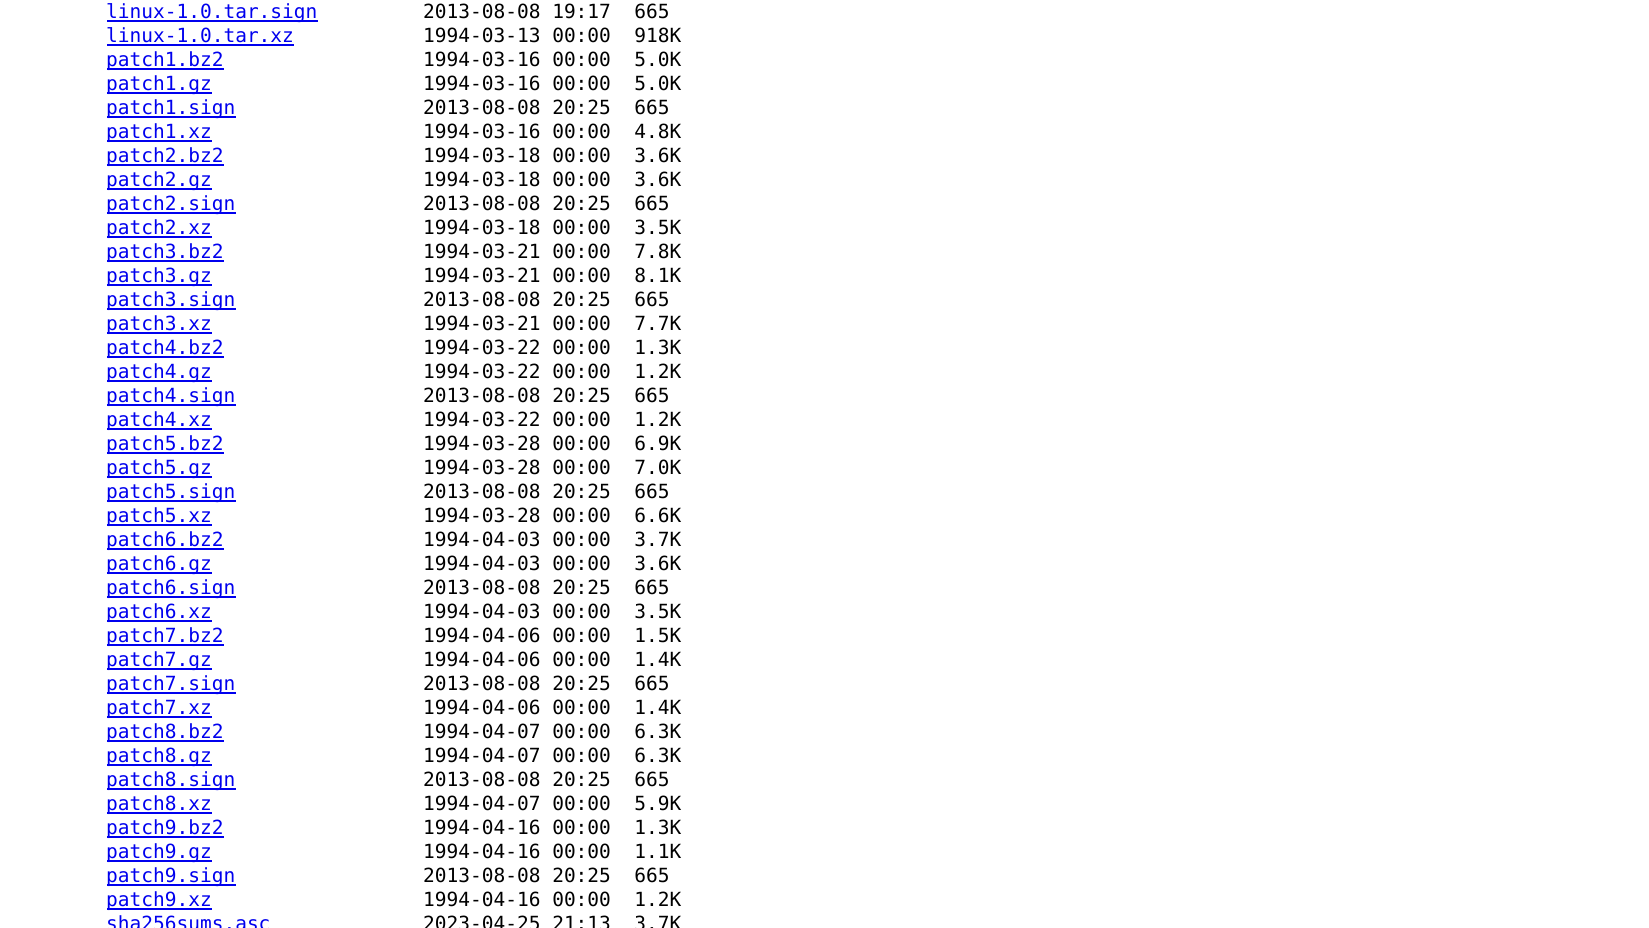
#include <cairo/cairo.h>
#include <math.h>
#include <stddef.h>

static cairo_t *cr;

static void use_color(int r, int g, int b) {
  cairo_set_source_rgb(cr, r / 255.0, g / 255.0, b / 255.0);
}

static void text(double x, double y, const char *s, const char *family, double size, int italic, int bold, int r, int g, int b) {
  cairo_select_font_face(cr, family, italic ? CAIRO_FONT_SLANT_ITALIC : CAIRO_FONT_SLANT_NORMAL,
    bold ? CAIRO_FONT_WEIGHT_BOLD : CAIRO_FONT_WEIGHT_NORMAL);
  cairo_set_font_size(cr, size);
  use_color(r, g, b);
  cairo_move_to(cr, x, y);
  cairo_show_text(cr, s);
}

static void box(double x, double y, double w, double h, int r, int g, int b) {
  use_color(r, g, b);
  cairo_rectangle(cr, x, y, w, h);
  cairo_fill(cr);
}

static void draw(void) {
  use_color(255, 255, 255);
  cairo_paint(cr);
  box(107, 20, 211, 2, 0, 0, 238);
  box(107, 44, 187, 2, 0, 0, 238);
  box(107, 68, 117, 2, 0, 0, 238);
  box(107, 92, 105, 2, 0, 0, 238);
  box(107, 116, 129, 2, 0, 0, 238);
  box(107, 140, 105, 2, 0, 0, 238);
  box(107, 164, 117, 2, 0, 0, 238);
  box(107, 188, 105, 2, 0, 0, 238);
  box(107, 212, 129, 2, 0, 0, 238);
  box(107, 236, 105, 2, 0, 0, 238);
  box(107, 260, 117, 2, 0, 0, 238);
  box(107, 284, 105, 2, 0, 0, 238);
  box(107, 308, 129, 2, 0, 0, 238);
  box(107, 332, 105, 2, 0, 0, 238);
  box(107, 356, 117, 2, 0, 0, 238);
  box(107, 380, 105, 2, 0, 0, 238);
  box(107, 404, 129, 2, 0, 0, 238);
  box(107, 428, 105, 2, 0, 0, 238);
  box(107, 452, 117, 2, 0, 0, 238);
  box(107, 476, 105, 2, 0, 0, 238);
  box(107, 500, 129, 2, 0, 0, 238);
  box(107, 524, 105, 2, 0, 0, 238);
  box(107, 548, 117, 2, 0, 0, 238);
  box(107, 572, 105, 2, 0, 0, 238);
  box(107, 596, 129, 2, 0, 0, 238);
  box(107, 620, 105, 2, 0, 0, 238);
  box(107, 644, 117, 2, 0, 0, 238);
  box(107, 668, 105, 2, 0, 0, 238);
  box(107, 692, 129, 2, 0, 0, 238);
  box(107, 716, 105, 2, 0, 0, 238);
  box(107, 740, 117, 2, 0, 0, 238);
  box(107, 764, 105, 2, 0, 0, 238);
  box(107, 788, 129, 2, 0, 0, 238);
  box(107, 812, 105, 2, 0, 0, 238);
  box(107, 836, 117, 2, 0, 0, 238);
  box(107, 860, 105, 2, 0, 0, 238);
  box(107, 884, 129, 2, 0, 0, 238);
  box(107, 908, 105, 2, 0, 0, 238);
  text(106, 18, "linux-1.0.tar.sign", "DejaVu Sans Mono", 19.5, 0, 0, 0, 0, 238);
  text(423, 18, "2013-08-08 19:17  665", "DejaVu Sans Mono", 19.5, 0, 0, 0, 0, 0);
  text(106, 42, "linux-1.0.tar.xz", "DejaVu Sans Mono", 19.5, 0, 0, 0, 0, 238);
  text(423, 42, "1994-03-13 00:00  918K", "DejaVu Sans Mono", 19.5, 0, 0, 0, 0, 0);
  text(106, 66, "patch1.bz2", "DejaVu Sans Mono", 19.5, 0, 0, 0, 0, 238);
  text(423, 66, "1994-03-16 00:00  5.0K", "DejaVu Sans Mono", 19.5, 0, 0, 0, 0, 0);
  text(106, 90, "patch1.gz", "DejaVu Sans Mono", 19.5, 0, 0, 0, 0, 238);
  text(423, 90, "1994-03-16 00:00  5.0K", "DejaVu Sans Mono", 19.5, 0, 0, 0, 0, 0);
  text(106, 114, "patch1.sign", "DejaVu Sans Mono", 19.5, 0, 0, 0, 0, 238);
  text(423, 114, "2013-08-08 20:25  665", "DejaVu Sans Mono", 19.5, 0, 0, 0, 0, 0);
  text(106, 138, "patch1.xz", "DejaVu Sans Mono", 19.5, 0, 0, 0, 0, 238);
  text(423, 138, "1994-03-16 00:00  4.8K", "DejaVu Sans Mono", 19.5, 0, 0, 0, 0, 0);
  text(106, 162, "patch2.bz2", "DejaVu Sans Mono", 19.5, 0, 0, 0, 0, 238);
  text(423, 162, "1994-03-18 00:00  3.6K", "DejaVu Sans Mono", 19.5, 0, 0, 0, 0, 0);
  text(106, 186, "patch2.gz", "DejaVu Sans Mono", 19.5, 0, 0, 0, 0, 238);
  text(423, 186, "1994-03-18 00:00  3.6K", "DejaVu Sans Mono", 19.5, 0, 0, 0, 0, 0);
  text(106, 210, "patch2.sign", "DejaVu Sans Mono", 19.5, 0, 0, 0, 0, 238);
  text(423, 210, "2013-08-08 20:25  665", "DejaVu Sans Mono", 19.5, 0, 0, 0, 0, 0);
  text(106, 234, "patch2.xz", "DejaVu Sans Mono", 19.5, 0, 0, 0, 0, 238);
  text(423, 234, "1994-03-18 00:00  3.5K", "DejaVu Sans Mono", 19.5, 0, 0, 0, 0, 0);
  text(106, 258, "patch3.bz2", "DejaVu Sans Mono", 19.5, 0, 0, 0, 0, 238);
  text(423, 258, "1994-03-21 00:00  7.8K", "DejaVu Sans Mono", 19.5, 0, 0, 0, 0, 0);
  text(106, 282, "patch3.gz", "DejaVu Sans Mono", 19.5, 0, 0, 0, 0, 238);
  text(423, 282, "1994-03-21 00:00  8.1K", "DejaVu Sans Mono", 19.5, 0, 0, 0, 0, 0);
  text(106, 306, "patch3.sign", "DejaVu Sans Mono", 19.5, 0, 0, 0, 0, 238);
  text(423, 306, "2013-08-08 20:25  665", "DejaVu Sans Mono", 19.5, 0, 0, 0, 0, 0);
  text(106, 330, "patch3.xz", "DejaVu Sans Mono", 19.5, 0, 0, 0, 0, 238);
  text(423, 330, "1994-03-21 00:00  7.7K", "DejaVu Sans Mono", 19.5, 0, 0, 0, 0, 0);
  text(106, 354, "patch4.bz2", "DejaVu Sans Mono", 19.5, 0, 0, 0, 0, 238);
  text(423, 354, "1994-03-22 00:00  1.3K", "DejaVu Sans Mono", 19.5, 0, 0, 0, 0, 0);
  text(106, 378, "patch4.gz", "DejaVu Sans Mono", 19.5, 0, 0, 0, 0, 238);
  text(423, 378, "1994-03-22 00:00  1.2K", "DejaVu Sans Mono", 19.5, 0, 0, 0, 0, 0);
  text(106, 402, "patch4.sign", "DejaVu Sans Mono", 19.5, 0, 0, 0, 0, 238);
  text(423, 402, "2013-08-08 20:25  665", "DejaVu Sans Mono", 19.5, 0, 0, 0, 0, 0);
  text(106, 426, "patch4.xz", "DejaVu Sans Mono", 19.5, 0, 0, 0, 0, 238);
  text(423, 426, "1994-03-22 00:00  1.2K", "DejaVu Sans Mono", 19.5, 0, 0, 0, 0, 0);
  text(106, 450, "patch5.bz2", "DejaVu Sans Mono", 19.5, 0, 0, 0, 0, 238);
  text(423, 450, "1994-03-28 00:00  6.9K", "DejaVu Sans Mono", 19.5, 0, 0, 0, 0, 0);
  text(106, 474, "patch5.gz", "DejaVu Sans Mono", 19.5, 0, 0, 0, 0, 238);
  text(423, 474, "1994-03-28 00:00  7.0K", "DejaVu Sans Mono", 19.5, 0, 0, 0, 0, 0);
  text(106, 498, "patch5.sign", "DejaVu Sans Mono", 19.5, 0, 0, 0, 0, 238);
  text(423, 498, "2013-08-08 20:25  665", "DejaVu Sans Mono", 19.5, 0, 0, 0, 0, 0);
  text(106, 522, "patch5.xz", "DejaVu Sans Mono", 19.5, 0, 0, 0, 0, 238);
  text(423, 522, "1994-03-28 00:00  6.6K", "DejaVu Sans Mono", 19.5, 0, 0, 0, 0, 0);
  text(106, 546, "patch6.bz2", "DejaVu Sans Mono", 19.5, 0, 0, 0, 0, 238);
  text(423, 546, "1994-04-03 00:00  3.7K", "DejaVu Sans Mono", 19.5, 0, 0, 0, 0, 0);
  text(106, 570, "patch6.gz", "DejaVu Sans Mono", 19.5, 0, 0, 0, 0, 238);
  text(423, 570, "1994-04-03 00:00  3.6K", "DejaVu Sans Mono", 19.5, 0, 0, 0, 0, 0);
  text(106, 594, "patch6.sign", "DejaVu Sans Mono", 19.5, 0, 0, 0, 0, 238);
  text(423, 594, "2013-08-08 20:25  665", "DejaVu Sans Mono", 19.5, 0, 0, 0, 0, 0);
  text(106, 618, "patch6.xz", "DejaVu Sans Mono", 19.5, 0, 0, 0, 0, 238);
  text(423, 618, "1994-04-03 00:00  3.5K", "DejaVu Sans Mono", 19.5, 0, 0, 0, 0, 0);
  text(106, 642, "patch7.bz2", "DejaVu Sans Mono", 19.5, 0, 0, 0, 0, 238);
  text(423, 642, "1994-04-06 00:00  1.5K", "DejaVu Sans Mono", 19.5, 0, 0, 0, 0, 0);
  text(106, 666, "patch7.gz", "DejaVu Sans Mono", 19.5, 0, 0, 0, 0, 238);
  text(423, 666, "1994-04-06 00:00  1.4K", "DejaVu Sans Mono", 19.5, 0, 0, 0, 0, 0);
  text(106, 690, "patch7.sign", "DejaVu Sans Mono", 19.5, 0, 0, 0, 0, 238);
  text(423, 690, "2013-08-08 20:25  665", "DejaVu Sans Mono", 19.5, 0, 0, 0, 0, 0);
  text(106, 714, "patch7.xz", "DejaVu Sans Mono", 19.5, 0, 0, 0, 0, 238);
  text(423, 714, "1994-04-06 00:00  1.4K", "DejaVu Sans Mono", 19.5, 0, 0, 0, 0, 0);
  text(106, 738, "patch8.bz2", "DejaVu Sans Mono", 19.5, 0, 0, 0, 0, 238);
  text(423, 738, "1994-04-07 00:00  6.3K", "DejaVu Sans Mono", 19.5, 0, 0, 0, 0, 0);
  text(106, 762, "patch8.gz", "DejaVu Sans Mono", 19.5, 0, 0, 0, 0, 238);
  text(423, 762, "1994-04-07 00:00  6.3K", "DejaVu Sans Mono", 19.5, 0, 0, 0, 0, 0);
  text(106, 786, "patch8.sign", "DejaVu Sans Mono", 19.5, 0, 0, 0, 0, 238);
  text(423, 786, "2013-08-08 20:25  665", "DejaVu Sans Mono", 19.5, 0, 0, 0, 0, 0);
  text(106, 810, "patch8.xz", "DejaVu Sans Mono", 19.5, 0, 0, 0, 0, 238);
  text(423, 810, "1994-04-07 00:00  5.9K", "DejaVu Sans Mono", 19.5, 0, 0, 0, 0, 0);
  text(106, 834, "patch9.bz2", "DejaVu Sans Mono", 19.5, 0, 0, 0, 0, 238);
  text(423, 834, "1994-04-16 00:00  1.3K", "DejaVu Sans Mono", 19.5, 0, 0, 0, 0, 0);
  text(106, 858, "patch9.gz", "DejaVu Sans Mono", 19.5, 0, 0, 0, 0, 238);
  text(423, 858, "1994-04-16 00:00  1.1K", "DejaVu Sans Mono", 19.5, 0, 0, 0, 0, 0);
  text(106, 882, "patch9.sign", "DejaVu Sans Mono", 19.5, 0, 0, 0, 0, 238);
  text(423, 882, "2013-08-08 20:25  665", "DejaVu Sans Mono", 19.5, 0, 0, 0, 0, 0);
  text(106, 906, "patch9.xz", "DejaVu Sans Mono", 19.5, 0, 0, 0, 0, 238);
  text(423, 906, "1994-04-16 00:00  1.2K", "DejaVu Sans Mono", 19.5, 0, 0, 0, 0, 0);
  text(106, 930, "sha256sums.asc", "DejaVu Sans Mono", 19.5, 0, 0, 0, 0, 238);
  text(423, 930, "2023-04-25 21:13  3.7K", "DejaVu Sans Mono", 19.5, 0, 0, 0, 0, 0);
}

int main(void) {
  cairo_surface_t *surface = cairo_image_surface_create(CAIRO_FORMAT_RGB24, 1649, 928);
  cr = cairo_create(surface);
  cairo_font_options_t *options = cairo_font_options_create();
  cairo_font_options_set_hint_metrics(options, CAIRO_HINT_METRICS_OFF);
  cairo_font_options_set_hint_style(options, CAIRO_HINT_STYLE_NONE);
  cairo_set_font_options(cr, options);
  cairo_set_miter_limit(cr, 4);
  draw();
  cairo_surface_write_to_png(surface, "out.png");
  cairo_font_options_destroy(options);
  cairo_destroy(cr);
  cairo_surface_destroy(surface);
  return 0;
}
